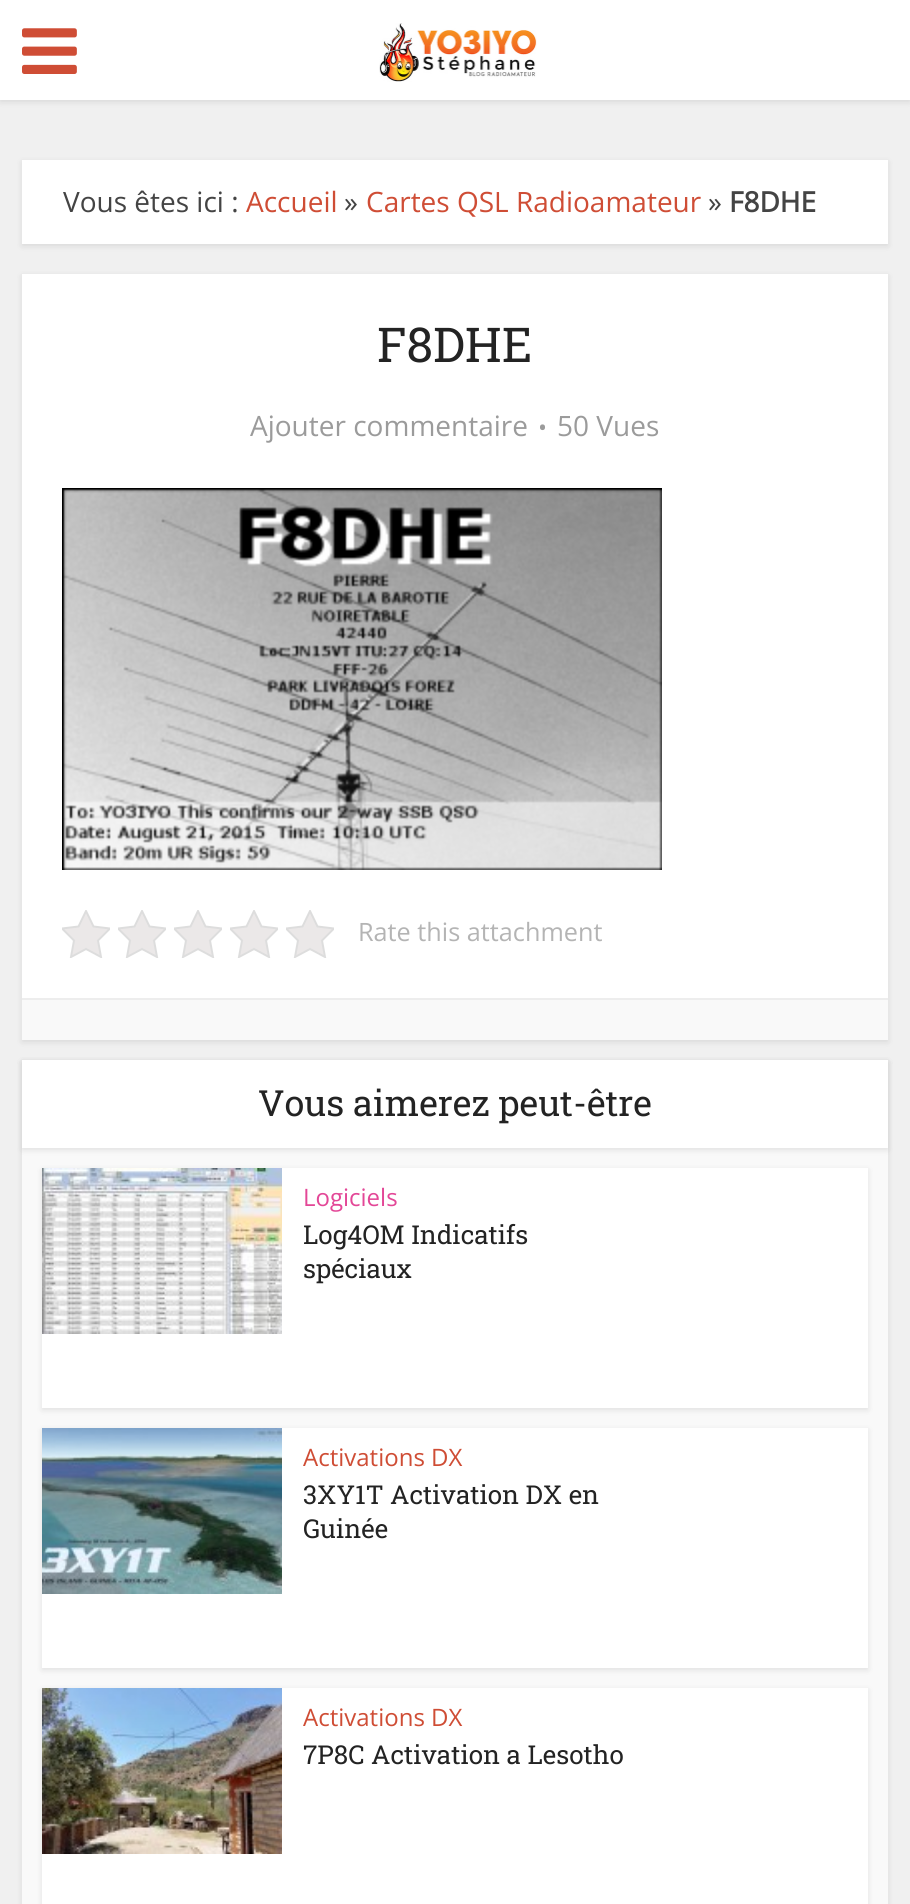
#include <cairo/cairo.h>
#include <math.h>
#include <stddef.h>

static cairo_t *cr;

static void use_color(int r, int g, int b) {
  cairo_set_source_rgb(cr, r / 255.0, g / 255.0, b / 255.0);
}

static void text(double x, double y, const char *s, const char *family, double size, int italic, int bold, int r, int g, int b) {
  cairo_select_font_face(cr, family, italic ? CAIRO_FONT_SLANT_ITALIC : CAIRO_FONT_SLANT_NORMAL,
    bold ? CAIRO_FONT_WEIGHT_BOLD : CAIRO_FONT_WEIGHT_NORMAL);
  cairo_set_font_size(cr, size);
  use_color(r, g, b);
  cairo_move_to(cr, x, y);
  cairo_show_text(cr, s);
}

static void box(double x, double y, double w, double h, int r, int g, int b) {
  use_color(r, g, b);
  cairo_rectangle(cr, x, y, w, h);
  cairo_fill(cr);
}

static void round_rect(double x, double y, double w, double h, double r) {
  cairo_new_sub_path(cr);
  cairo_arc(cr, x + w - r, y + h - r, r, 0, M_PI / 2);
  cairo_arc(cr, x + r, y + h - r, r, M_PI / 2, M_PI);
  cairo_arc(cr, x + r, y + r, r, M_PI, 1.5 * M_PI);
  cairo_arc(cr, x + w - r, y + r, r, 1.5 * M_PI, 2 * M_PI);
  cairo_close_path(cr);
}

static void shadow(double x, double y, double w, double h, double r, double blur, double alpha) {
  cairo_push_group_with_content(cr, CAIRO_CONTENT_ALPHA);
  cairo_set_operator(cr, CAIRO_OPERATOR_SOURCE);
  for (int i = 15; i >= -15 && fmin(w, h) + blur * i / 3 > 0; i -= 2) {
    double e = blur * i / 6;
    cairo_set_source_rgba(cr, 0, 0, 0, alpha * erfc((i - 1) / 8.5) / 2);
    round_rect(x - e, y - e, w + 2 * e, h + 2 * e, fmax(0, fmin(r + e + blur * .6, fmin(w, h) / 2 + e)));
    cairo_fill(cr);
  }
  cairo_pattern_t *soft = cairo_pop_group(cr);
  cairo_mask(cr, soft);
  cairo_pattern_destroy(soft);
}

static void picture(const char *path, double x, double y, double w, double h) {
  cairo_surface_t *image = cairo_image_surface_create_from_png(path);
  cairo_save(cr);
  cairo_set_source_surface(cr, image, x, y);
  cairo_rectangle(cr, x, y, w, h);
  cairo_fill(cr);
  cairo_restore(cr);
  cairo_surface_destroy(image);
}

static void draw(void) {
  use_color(240, 240, 240);
  cairo_paint(cr);
  use_color(0, 0, 0);
  shadow(0, 2, 910, 100, 0, 3, 0.1);
  box(0, 0, 910, 100, 255, 255, 255);
  picture("img_01.png", 22, 28, 55, 46);
  picture("img_02.png", 379, 23, 158, 59);
  use_color(0, 0, 0);
  shadow(22, 162, 866, 84, 0, 3, 0.1);
  box(22, 160, 866, 84, 255, 255, 255);
  use_color(0, 0, 0);
  shadow(22, 276, 866, 766, 0, 3, 0.1);
  box(22, 274, 866, 724, 255, 255, 255);
  picture("img_03.png", 62, 488, 600, 382);
  use_color(235, 232, 232);
  cairo_new_path(cr);
  cairo_move_to(cr, 86, 911);
  cairo_line_to(cr, 93, 926);
  cairo_line_to(cr, 110, 929);
  cairo_line_to(cr, 98, 940);
  cairo_line_to(cr, 101, 957);
  cairo_line_to(cr, 86, 949);
  cairo_line_to(cr, 71, 957);
  cairo_line_to(cr, 74, 940);
  cairo_line_to(cr, 62, 929);
  cairo_line_to(cr, 79, 926);
  cairo_close_path(cr);
  cairo_fill(cr);
  cairo_save(cr);
  cairo_rectangle(cr, 62, 910, 48, 48);
  cairo_clip(cr);
  cairo_new_path(cr);
  cairo_move_to(cr, 86, 911);
  cairo_line_to(cr, 93.5, 926.5);
  cairo_line_to(cr, 110, 928.5);
  cairo_line_to(cr, 98, 940.5);
  cairo_line_to(cr, 101, 957);
  cairo_line_to(cr, 86, 949);
  cairo_line_to(cr, 71, 957);
  cairo_line_to(cr, 74, 940.5);
  cairo_line_to(cr, 62, 928.5);
  cairo_line_to(cr, 78.5, 926.5);
  cairo_close_path(cr);
  use_color(221, 221, 221);
  cairo_stroke(cr);
  cairo_restore(cr);
  cairo_new_path(cr);
  cairo_move_to(cr, 142, 911);
  cairo_line_to(cr, 149, 926);
  cairo_line_to(cr, 166, 929);
  cairo_line_to(cr, 154, 940);
  cairo_line_to(cr, 157, 957);
  cairo_line_to(cr, 142, 949);
  cairo_line_to(cr, 127, 957);
  cairo_line_to(cr, 130, 940);
  cairo_line_to(cr, 118, 929);
  cairo_line_to(cr, 135, 926);
  cairo_close_path(cr);
  cairo_fill(cr);
  cairo_save(cr);
  cairo_rectangle(cr, 118, 910, 48, 48);
  cairo_clip(cr);
  cairo_new_path(cr);
  cairo_move_to(cr, 142, 911);
  cairo_line_to(cr, 149.5, 926.5);
  cairo_line_to(cr, 166, 928.5);
  cairo_line_to(cr, 154, 940.5);
  cairo_line_to(cr, 157, 957);
  cairo_line_to(cr, 142, 949);
  cairo_line_to(cr, 127, 957);
  cairo_line_to(cr, 130, 940.5);
  cairo_line_to(cr, 118, 928.5);
  cairo_line_to(cr, 134.5, 926.5);
  cairo_close_path(cr);
  use_color(221, 221, 221);
  cairo_stroke(cr);
  cairo_restore(cr);
  cairo_new_path(cr);
  cairo_move_to(cr, 198, 911);
  cairo_line_to(cr, 205, 926);
  cairo_line_to(cr, 222, 929);
  cairo_line_to(cr, 210, 940);
  cairo_line_to(cr, 213, 957);
  cairo_line_to(cr, 198, 949);
  cairo_line_to(cr, 183, 957);
  cairo_line_to(cr, 186, 940);
  cairo_line_to(cr, 174, 929);
  cairo_line_to(cr, 191, 926);
  cairo_close_path(cr);
  cairo_fill(cr);
  cairo_save(cr);
  cairo_rectangle(cr, 174, 910, 48, 48);
  cairo_clip(cr);
  cairo_new_path(cr);
  cairo_move_to(cr, 198, 911);
  cairo_line_to(cr, 205.5, 926.5);
  cairo_line_to(cr, 222, 928.5);
  cairo_line_to(cr, 210, 940.5);
  cairo_line_to(cr, 213, 957);
  cairo_line_to(cr, 198, 949);
  cairo_line_to(cr, 183, 957);
  cairo_line_to(cr, 186, 940.5);
  cairo_line_to(cr, 174, 928.5);
  cairo_line_to(cr, 190.5, 926.5);
  cairo_close_path(cr);
  use_color(221, 221, 221);
  cairo_stroke(cr);
  cairo_restore(cr);
  cairo_new_path(cr);
  cairo_move_to(cr, 254, 911);
  cairo_line_to(cr, 261, 926);
  cairo_line_to(cr, 278, 929);
  cairo_line_to(cr, 266, 940);
  cairo_line_to(cr, 269, 957);
  cairo_line_to(cr, 254, 949);
  cairo_line_to(cr, 239, 957);
  cairo_line_to(cr, 242, 940);
  cairo_line_to(cr, 230, 929);
  cairo_line_to(cr, 247, 926);
  cairo_close_path(cr);
  cairo_fill(cr);
  cairo_save(cr);
  cairo_rectangle(cr, 230, 910, 48, 48);
  cairo_clip(cr);
  cairo_new_path(cr);
  cairo_move_to(cr, 254, 911);
  cairo_line_to(cr, 261.5, 926.5);
  cairo_line_to(cr, 278, 928.5);
  cairo_line_to(cr, 266, 940.5);
  cairo_line_to(cr, 269, 957);
  cairo_line_to(cr, 254, 949);
  cairo_line_to(cr, 239, 957);
  cairo_line_to(cr, 242, 940.5);
  cairo_line_to(cr, 230, 928.5);
  cairo_line_to(cr, 246.5, 926.5);
  cairo_close_path(cr);
  use_color(221, 221, 221);
  cairo_stroke(cr);
  cairo_restore(cr);
  cairo_new_path(cr);
  cairo_move_to(cr, 310, 911);
  cairo_line_to(cr, 317, 926);
  cairo_line_to(cr, 334, 929);
  cairo_line_to(cr, 322, 940);
  cairo_line_to(cr, 325, 957);
  cairo_line_to(cr, 310, 949);
  cairo_line_to(cr, 295, 957);
  cairo_line_to(cr, 298, 940);
  cairo_line_to(cr, 286, 929);
  cairo_line_to(cr, 303, 926);
  cairo_close_path(cr);
  cairo_fill(cr);
  cairo_save(cr);
  cairo_rectangle(cr, 286, 910, 48, 48);
  cairo_clip(cr);
  cairo_new_path(cr);
  cairo_move_to(cr, 310, 911);
  cairo_line_to(cr, 317.5, 926.5);
  cairo_line_to(cr, 334, 928.5);
  cairo_line_to(cr, 322, 940.5);
  cairo_line_to(cr, 325, 957);
  cairo_line_to(cr, 310, 949);
  cairo_line_to(cr, 295, 957);
  cairo_line_to(cr, 298, 940.5);
  cairo_line_to(cr, 286, 928.5);
  cairo_line_to(cr, 302.5, 926.5);
  cairo_close_path(cr);
  use_color(221, 221, 221);
  cairo_stroke(cr);
  cairo_restore(cr);
  box(22, 1000, 866, 40, 249, 249, 249);
  box(22, 998, 866, 2, 237, 237, 237);
  use_color(0, 0, 0);
  shadow(22, 1062, 866, 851, 0, 3, 0.1);
  box(22, 1148, 866, 756, 249, 249, 249);
  use_color(0, 0, 0);
  shadow(22, 1062, 866, 88, 0, 3, 0.1);
  box(22, 1060, 866, 88, 255, 255, 255);
  use_color(0, 0, 0);
  shadow(42, 1170, 826, 240, 0, 3, 0.1);
  box(42, 1168, 826, 240, 255, 255, 255);
  picture("img_04.png", 42, 1168, 240, 166);
  use_color(0, 0, 0);
  shadow(42, 1430, 826, 240, 0, 3, 0.1);
  box(42, 1428, 826, 240, 255, 255, 255);
  picture("img_05.png", 42, 1428, 240, 166);
  use_color(0, 0, 0);
  shadow(42, 1690, 826, 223, 0, 3, 0.1);
  box(42, 1688, 826, 216, 255, 255, 255);
  picture("img_06.png", 42, 1688, 240, 166);
  text(63, 212, "Vous êtes ici :", "Open Sans", 28, 0, 0, 68, 68, 68);
  text(246, 212, "Accueil", "Open Sans", 28, 0, 0, 207, 77, 53);
  text(344, 212, "»", "Open Sans", 28, 0, 0, 68, 68, 68);
  text(366, 212, "Cartes QSL Radioamateur", "Open Sans", 28, 0, 0, 207, 77, 53);
  text(708, 212, "»", "Open Sans", 28, 0, 0, 68, 68, 68);
  text(729, 212, "F8DHE", "Open Sans", 28, 0, 1, 68, 68, 68);
  text(377, 362, "F8DHE", "Roboto Slab", 48, 0, 0, 35, 35, 35);
  text(250, 436, "Ajouter commentaire", "Open Sans", 28, 0, 0, 155, 155, 155);
  text(538, 436, "•", "Open Sans", 24, 0, 0, 155, 155, 155);
  text(557, 436, "50 Vues", "Open Sans", 28, 0, 0, 155, 155, 155);
  text(358, 941, "Rate this attachment", "Open Sans", 25.25, 0, 0, 180, 180, 180);
  text(258, 1116, "Vous aimerez peut-être", "Roboto Slab", 36, 0, 0, 35, 35, 35);
  text(303, 1206, "Logiciels", "Open Sans", 24, 0, 0, 227, 71, 151);
  text(303, 1244, "Log4OM Indicatifs", "Roboto Slab", 26, 0, 0, 35, 35, 35);
  text(303, 1278, "spéciaux", "Roboto Slab", 26, 0, 0, 35, 35, 35);
  text(303, 1466, "Activations DX", "Open Sans", 24, 0, 0, 207, 77, 53);
  text(303, 1504, "3XY1T Activation DX en", "Roboto Slab", 26, 0, 0, 35, 35, 35);
  text(303, 1538, "Guinée", "Roboto Slab", 26, 0, 0, 35, 35, 35);
  text(303, 1726, "Activations DX", "Open Sans", 24, 0, 0, 207, 77, 53);
  text(303, 1764, "7P8C Activation a Lesotho", "Roboto Slab", 26, 0, 0, 35, 35, 35);
}

int main(void) {
  cairo_surface_t *surface = cairo_image_surface_create(CAIRO_FORMAT_RGB24, 910, 1904);
  cr = cairo_create(surface);
  cairo_font_options_t *options = cairo_font_options_create();
  cairo_font_options_set_hint_metrics(options, CAIRO_HINT_METRICS_OFF);
  cairo_font_options_set_hint_style(options, CAIRO_HINT_STYLE_NONE);
  cairo_set_font_options(cr, options);
  cairo_set_miter_limit(cr, 4);
  draw();
  cairo_surface_write_to_png(surface, "out.png");
  cairo_font_options_destroy(options);
  cairo_destroy(cr);
  cairo_surface_destroy(surface);
  return 0;
}
